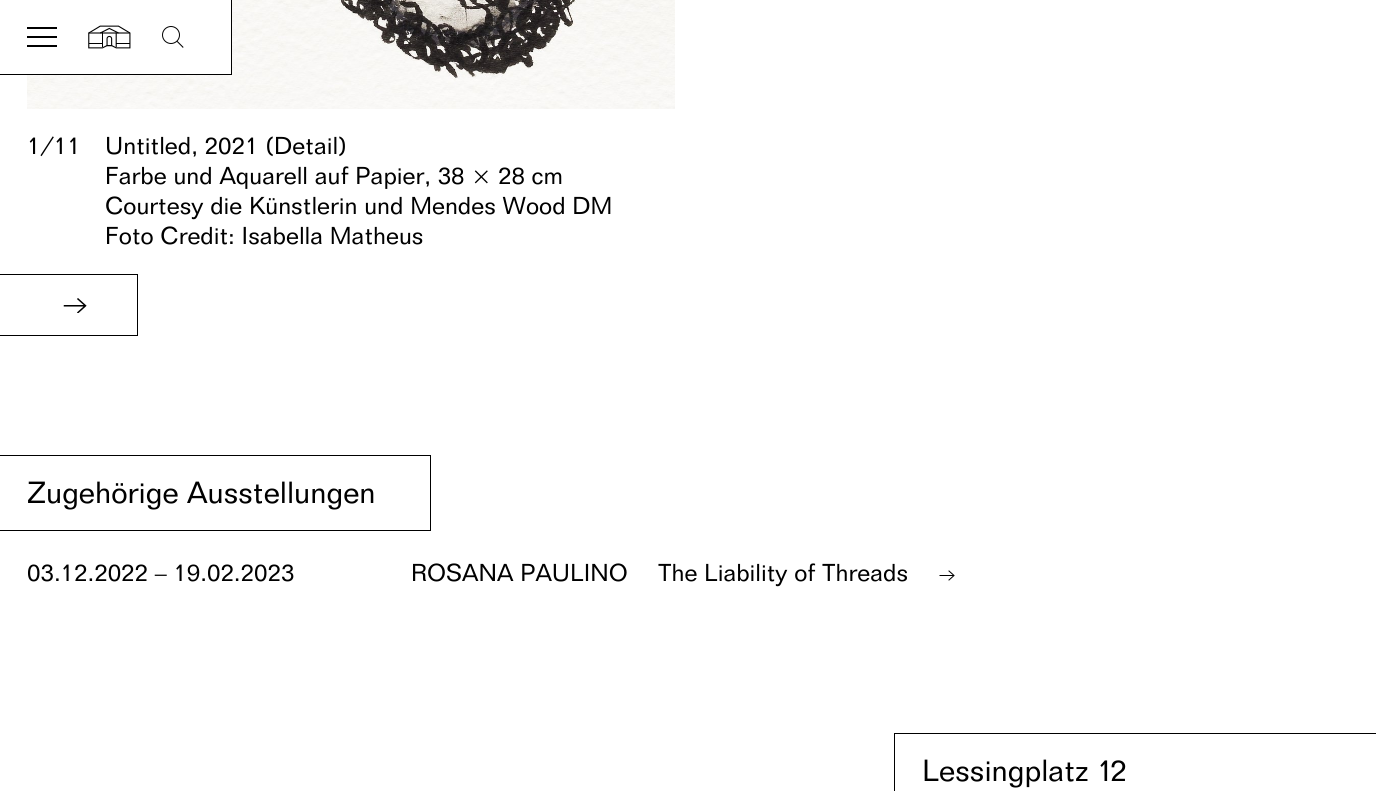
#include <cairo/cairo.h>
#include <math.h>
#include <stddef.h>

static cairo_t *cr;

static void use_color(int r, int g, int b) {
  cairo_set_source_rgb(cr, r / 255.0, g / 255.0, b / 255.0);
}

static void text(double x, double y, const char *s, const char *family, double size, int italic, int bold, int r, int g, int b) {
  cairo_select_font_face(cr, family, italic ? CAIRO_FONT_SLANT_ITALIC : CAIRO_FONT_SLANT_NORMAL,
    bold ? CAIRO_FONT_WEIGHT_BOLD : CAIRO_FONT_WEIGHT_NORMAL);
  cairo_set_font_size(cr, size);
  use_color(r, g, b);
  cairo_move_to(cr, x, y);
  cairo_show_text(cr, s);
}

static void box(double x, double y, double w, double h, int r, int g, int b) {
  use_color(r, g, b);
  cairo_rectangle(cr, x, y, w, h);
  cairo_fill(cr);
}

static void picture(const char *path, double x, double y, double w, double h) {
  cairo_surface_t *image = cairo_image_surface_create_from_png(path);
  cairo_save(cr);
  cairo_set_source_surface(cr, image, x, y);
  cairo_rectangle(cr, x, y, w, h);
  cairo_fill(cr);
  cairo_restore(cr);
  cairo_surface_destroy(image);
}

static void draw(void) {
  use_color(255, 255, 255);
  cairo_paint(cr);
  picture("img_02.png", 27, 0, 648, 109);
  box(27, 0, 204, 74, 255, 255, 255);
  box(231, 0, 1, 75, 0, 0, 0);
  box(0, 74, 232, 1, 0, 0, 0);
  box(27, 36, 30, 2, 0, 0, 0);
  box(27, 27, 30, 2, 0, 0, 0);
  box(27, 45, 30, 2, 0, 0, 0);
  picture("img_01.png", 88, 25, 43, 24);
  cairo_arc(cr, 171, 35, 8.5, 0, 2 * M_PI);
  cairo_set_line_width(cr, 1);
  cairo_stroke(cr);
  cairo_new_path(cr);
  cairo_move_to(cr, 177.5, 41);
  cairo_line_to(cr, 183.5, 47);
  cairo_line_to(cr, 183, 48);
  cairo_line_to(cr, 176.5, 41.5);
  cairo_close_path(cr);
  cairo_fill(cr);
  box(0, 274, 138, 1, 0, 0, 0);
  box(137, 274, 1, 62, 0, 0, 0);
  box(0, 335, 138, 1, 0, 0, 0);
  picture("img_03.png", 63, 298, 24, 15);
  box(0, 455, 431, 1, 0, 0, 0);
  box(430, 455, 1, 76, 0, 0, 0);
  box(0, 530, 431, 1, 0, 0, 0);
  picture("img_04.png", 939, 570, 16, 11);
  box(894, 733, 482, 1, 0, 0, 0);
  box(894, 733, 1, 58, 0, 0, 0);
  text(27, 154, "1/11", "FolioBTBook", 24, 0, 0, 0, 0, 0);
  text(105, 154, "Untitled, 2021 (Detail)", "FolioBTBook", 24, 0, 0, 0, 0, 0);
  text(105, 184, "Farbe und Aquarell auf Papier, 38 × 28 cm", "FolioBTBook", 24, 0, 0, 0, 0, 0);
  text(105, 214, "Courtesy die Künstlerin und Mendes Wood DM", "FolioBTBook", 24, 0, 0, 0, 0, 0);
  text(105, 244, "Foto Credit: Isabella Matheus", "FolioBTBook", 24, 0, 0, 0, 0, 0);
  text(27, 503, "Zugehörige Ausstellungen", "FolioBTBook", 30, 0, 0, 0, 0, 0);
  text(27, 581, "03.12.2022 – 19.02.2023", "FolioBTBook", 24, 0, 0, 0, 0, 0);
  text(411, 581, "ROSANA PAULINO", "FolioBTBook", 24, 0, 0, 0, 0, 0);
  text(658, 581, "The Liability of Threads", "FolioBTBook", 24, 0, 0, 0, 0, 0);
  text(922, 781, "Lessingplatz 1", "FolioBTBook", 30, 0, 0, 0, 0, 0);
  text(1110, 781, "2", "FolioBTBook", 30, 0, 0, 0, 0, 0);
}

int main(void) {
  cairo_surface_t *surface = cairo_image_surface_create(CAIRO_FORMAT_RGB24, 1376, 791);
  cr = cairo_create(surface);
  cairo_font_options_t *options = cairo_font_options_create();
  cairo_font_options_set_hint_metrics(options, CAIRO_HINT_METRICS_OFF);
  cairo_font_options_set_hint_style(options, CAIRO_HINT_STYLE_NONE);
  cairo_set_font_options(cr, options);
  cairo_set_miter_limit(cr, 4);
  draw();
  cairo_surface_write_to_png(surface, "out.png");
  cairo_font_options_destroy(options);
  cairo_destroy(cr);
  cairo_surface_destroy(surface);
  return 0;
}
